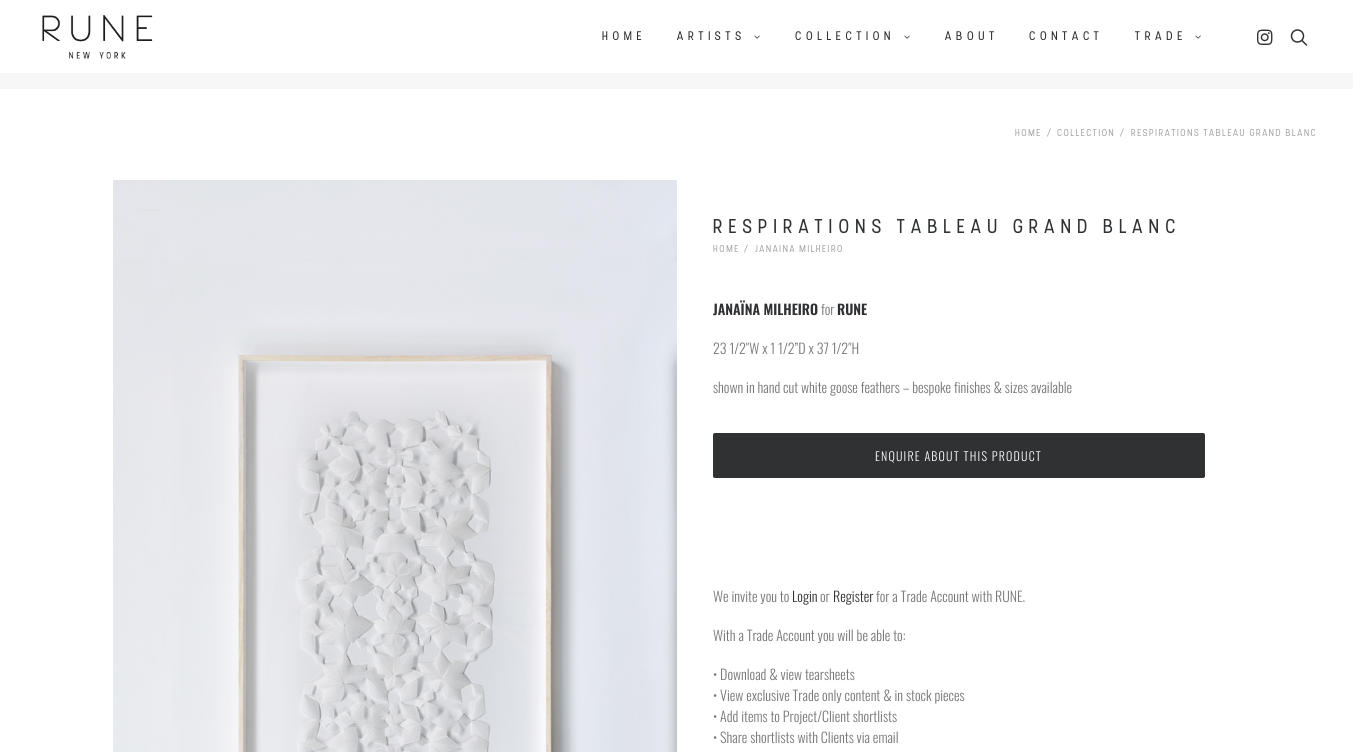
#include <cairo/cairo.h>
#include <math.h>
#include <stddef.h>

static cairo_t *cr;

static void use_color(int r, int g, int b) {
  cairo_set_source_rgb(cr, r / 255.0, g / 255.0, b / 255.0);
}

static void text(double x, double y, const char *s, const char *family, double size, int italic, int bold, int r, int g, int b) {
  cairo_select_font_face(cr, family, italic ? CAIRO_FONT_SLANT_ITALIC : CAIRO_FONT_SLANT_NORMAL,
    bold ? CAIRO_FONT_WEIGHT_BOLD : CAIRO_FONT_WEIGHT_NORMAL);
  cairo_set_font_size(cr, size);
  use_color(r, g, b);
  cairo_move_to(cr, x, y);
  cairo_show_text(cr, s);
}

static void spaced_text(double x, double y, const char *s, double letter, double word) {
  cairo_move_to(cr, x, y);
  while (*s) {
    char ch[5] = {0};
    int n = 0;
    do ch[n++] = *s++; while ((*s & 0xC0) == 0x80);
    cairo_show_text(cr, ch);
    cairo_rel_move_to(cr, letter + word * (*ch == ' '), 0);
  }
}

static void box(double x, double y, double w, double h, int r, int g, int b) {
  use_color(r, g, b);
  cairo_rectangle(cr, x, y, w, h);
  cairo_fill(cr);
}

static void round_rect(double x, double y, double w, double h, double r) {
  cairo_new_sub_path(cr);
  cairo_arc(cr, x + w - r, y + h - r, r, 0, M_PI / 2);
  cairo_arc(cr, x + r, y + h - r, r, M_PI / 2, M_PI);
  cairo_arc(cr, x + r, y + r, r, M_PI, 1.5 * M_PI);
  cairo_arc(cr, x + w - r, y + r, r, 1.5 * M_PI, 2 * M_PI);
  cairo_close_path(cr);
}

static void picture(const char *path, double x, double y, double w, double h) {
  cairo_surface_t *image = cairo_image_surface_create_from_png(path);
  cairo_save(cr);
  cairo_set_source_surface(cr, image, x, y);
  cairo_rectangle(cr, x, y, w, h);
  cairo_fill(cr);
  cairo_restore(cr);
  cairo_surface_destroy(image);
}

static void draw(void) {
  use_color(247, 247, 247);
  cairo_paint(cr);
  box(0, 0, 1353, 73, 255, 255, 255);
  picture("img_01.png", 42, 15, 111, 44);
  picture("img_02.png", 754, 35, 6, 4);
  picture("img_02.png", 904, 35, 6, 4);
  picture("img_02.png", 1195, 35, 6, 4);
  picture("img_03.png", 1257, 29, 16, 16);
  picture("img_04.png", 1290, 29, 18, 17);
  box(0, 89, 1353, 663, 255, 255, 255);
  picture("img_05.png", 113, 180, 564, 572);
  use_color(48, 49, 51);
  round_rect(713.5, 433.5, 491, 44, 1.5);
  cairo_fill_preserve(cr);
  cairo_set_line_width(cr, 1);
  cairo_stroke(cr);
  cairo_select_font_face(cr, "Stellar", CAIRO_FONT_SLANT_NORMAL, CAIRO_FONT_WEIGHT_BOLD);
  cairo_set_font_size(cr, 12);
  spaced_text(602, 40, "HOME", 4.25, 0);
  spaced_text(677, 40, "ARTISTS", 4.25, 0);
  spaced_text(795, 40, "COLLECTION", 4.25, 0);
  spaced_text(945, 40, "ABOUT", 4.25, 0);
  spaced_text(1029, 40, "CONTACT", 4.25, 0);
  spaced_text(1135, 40, "TRADE", 4.25, 0);
  cairo_select_font_face(cr, "Stellar", CAIRO_FONT_SLANT_NORMAL, CAIRO_FONT_WEIGHT_NORMAL);
  cairo_set_font_size(cr, 10);
  use_color(167, 167, 167);
  spaced_text(1015, 136, "HOME", 1, 0);
  spaced_text(1047, 136, "/", 1, 0);
  spaced_text(1057, 136, "COLLECTION", 1, 0);
  spaced_text(1120, 136, "/", 1, 0);
  spaced_text(1131, 136, "RESPIRATIONS TABLEAU GRAND BLANC", 1, 0);
  cairo_set_font_size(cr, 20);
  use_color(48, 49, 51);
  spaced_text(713, 233, "RESPIRATIONS TABLEAU GRAND BLANC", 5, 0);
  cairo_set_font_size(cr, 10);
  use_color(167, 167, 167);
  spaced_text(713, 252, "HOME", 1, 0);
  spaced_text(744, 252, "/", 1, 0);
  spaced_text(755, 252, "JANAINA MILHEIRO", 1, 0);
  text(713, 315, "JANAÏNA MILHEIRO", "Oswald SemiBold", 14, 0, 0, 48, 49, 51);
  text(821, 315, "for", "Oswald Light", 14, 0, 0, 119, 119, 119);
  text(837, 315, "RUNE", "Oswald SemiBold", 14, 0, 0, 48, 49, 51);
  text(713, 354, "23 1/2″W x 1 1/2”D x 37 1/2″H", "Oswald Light", 14, 0, 0, 119, 119, 119);
  text(713, 393, "shown in hand cut white goose feathers – bespoke finishes & sizes available", "Oswald Light", 14, 0, 0, 119, 119, 119);
  cairo_set_font_size(cr, 12);
  use_color(255, 255, 255);
  spaced_text(875, 461, "ENQUIRE ABOUT THIS PRODUCT", 1.2, 0);
  text(713, 602, "We invite you to", "Oswald Light", 14, 0, 0, 119, 119, 119);
  text(792, 602, "Login", "Oswald Light", 14, 0, 0, 48, 49, 51);
  text(820, 602, "or", "Oswald Light", 14, 0, 0, 119, 119, 119);
  text(833, 602, "Register", "Oswald Light", 14, 0, 0, 48, 49, 51);
  text(876, 602, "for a Trade Account with RUNE.", "Oswald Light", 14, 0, 0, 119, 119, 119);
  text(713, 641, "With a Trade Account you will be able to:", "Oswald Light", 14, 0, 0, 119, 119, 119);
  text(713, 680, "• Download & view tearsheets", "Oswald Light", 14, 0, 0, 119, 119, 119);
  text(713, 701, "• View exclusive Trade only content & in stock pieces", "Oswald Light", 14, 0, 0, 119, 119, 119);
  text(713, 722, "• Add items to Project/Client shortlists", "Oswald Light", 14, 0, 0, 119, 119, 119);
  text(713, 743, "• Share shortlists with Clients via email", "Oswald Light", 14, 0, 0, 119, 119, 119);
}

int main(void) {
  cairo_surface_t *surface = cairo_image_surface_create(CAIRO_FORMAT_RGB24, 1353, 752);
  cr = cairo_create(surface);
  cairo_font_options_t *options = cairo_font_options_create();
  cairo_font_options_set_hint_metrics(options, CAIRO_HINT_METRICS_OFF);
  cairo_font_options_set_hint_style(options, CAIRO_HINT_STYLE_NONE);
  cairo_set_font_options(cr, options);
  cairo_set_miter_limit(cr, 4);
  draw();
  cairo_surface_write_to_png(surface, "out.png");
  cairo_font_options_destroy(options);
  cairo_destroy(cr);
  cairo_surface_destroy(surface);
  return 0;
}
